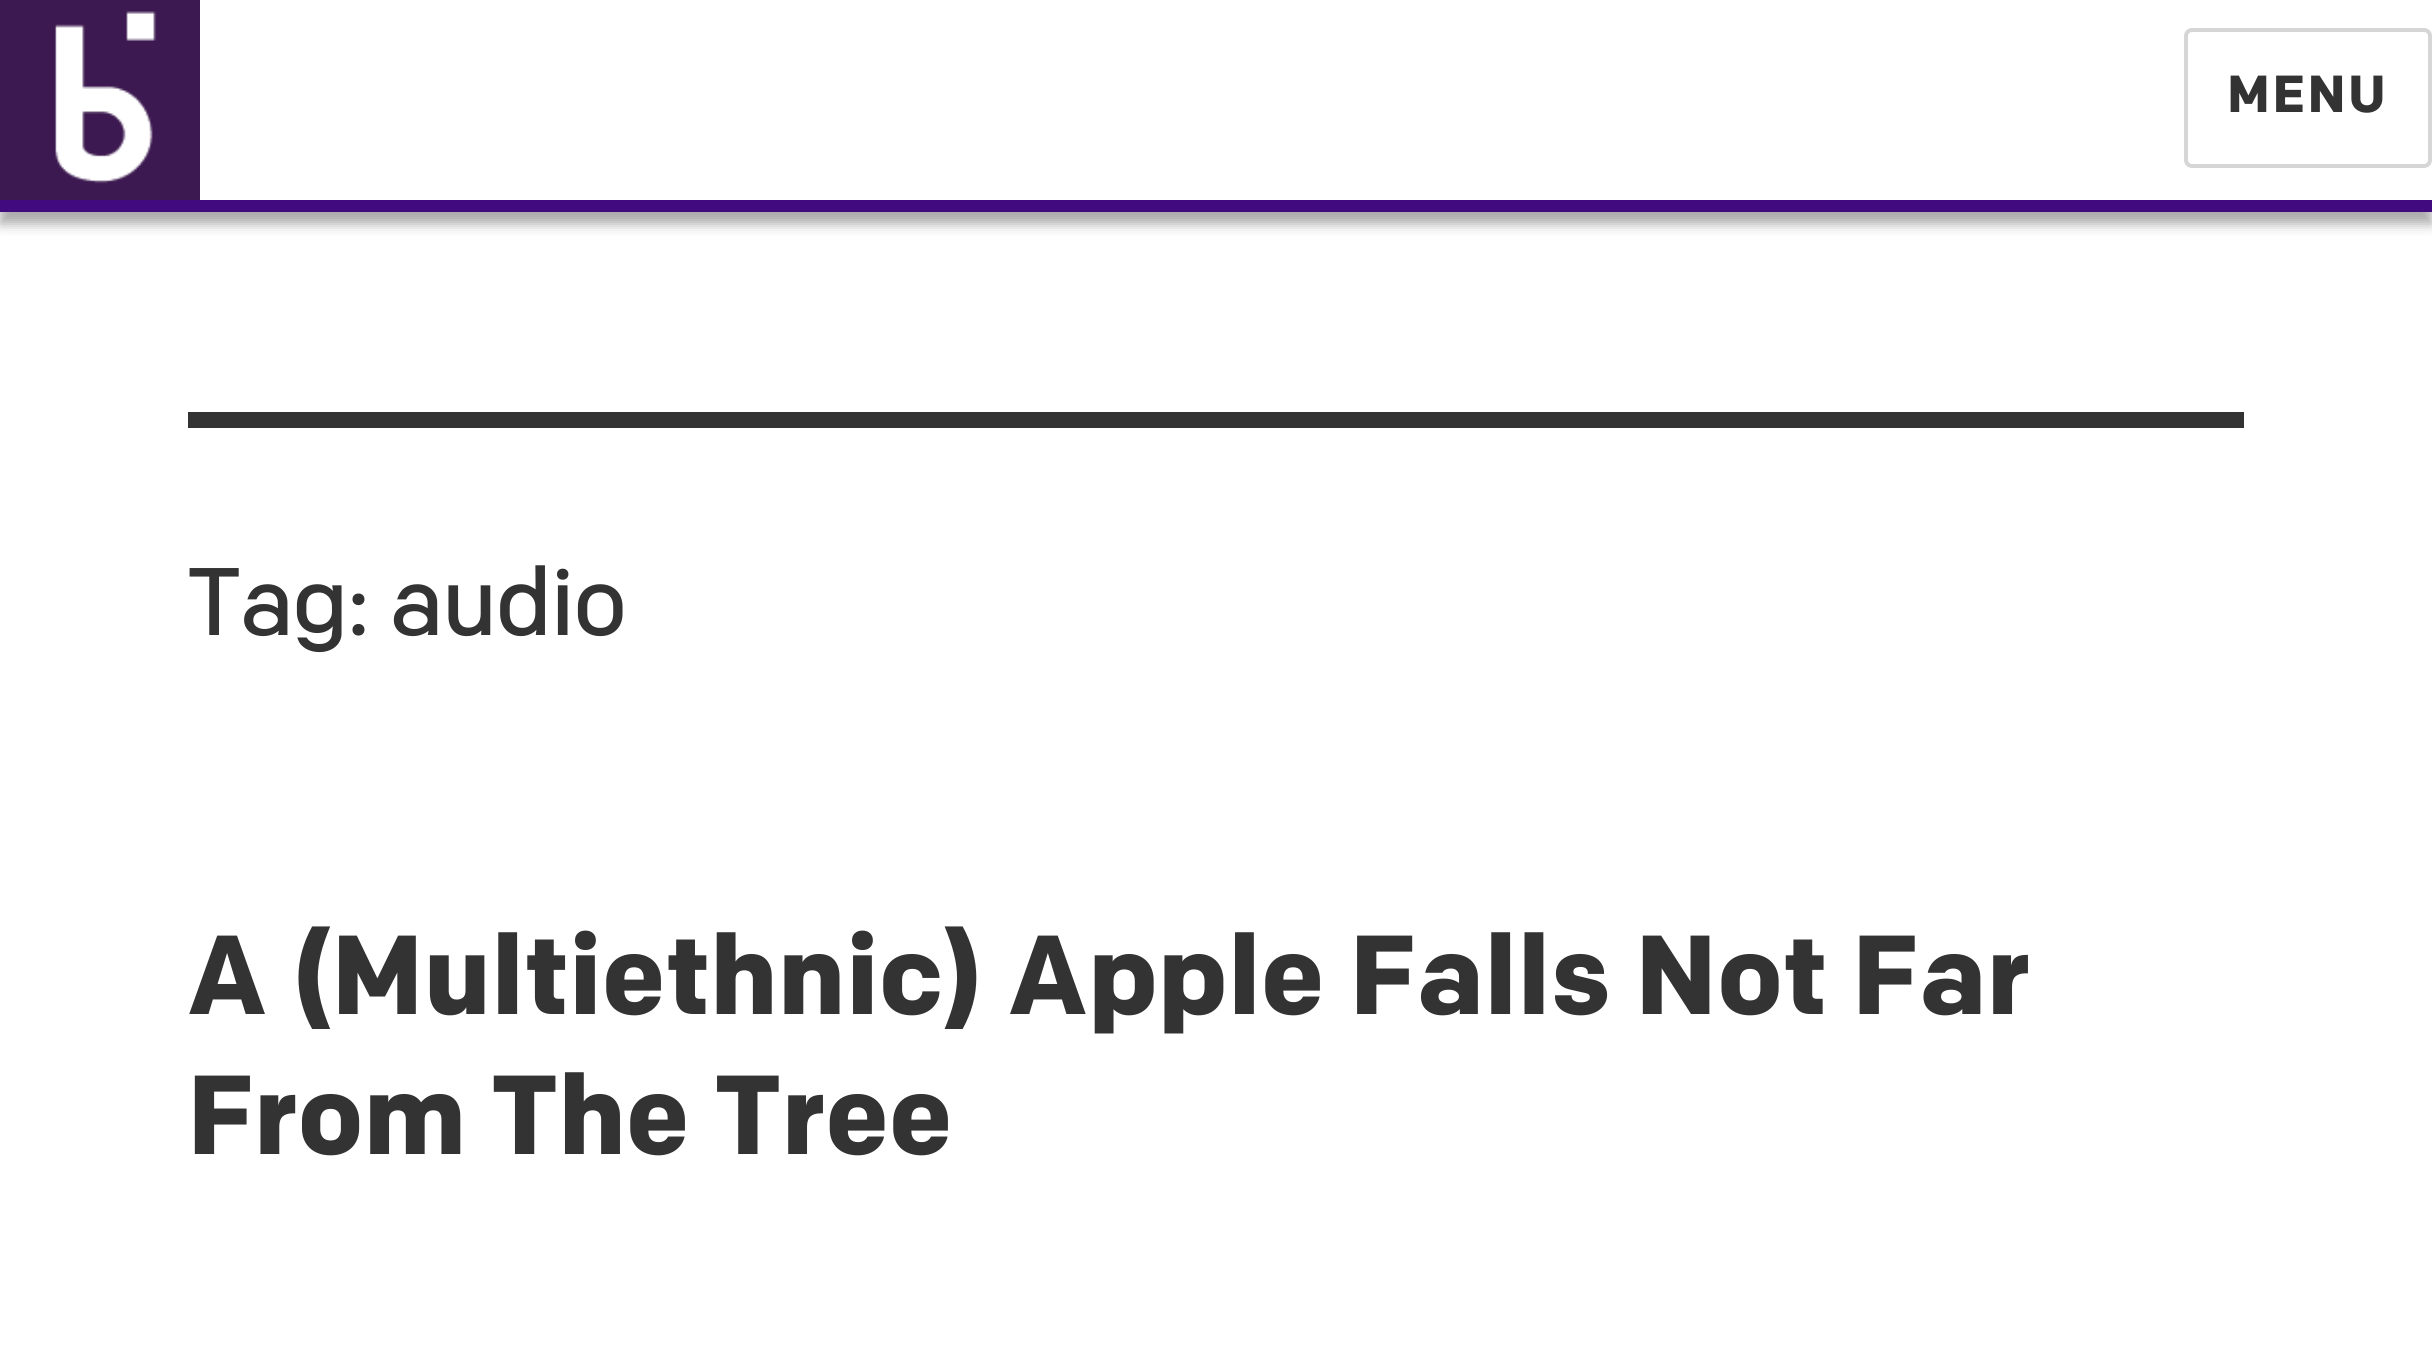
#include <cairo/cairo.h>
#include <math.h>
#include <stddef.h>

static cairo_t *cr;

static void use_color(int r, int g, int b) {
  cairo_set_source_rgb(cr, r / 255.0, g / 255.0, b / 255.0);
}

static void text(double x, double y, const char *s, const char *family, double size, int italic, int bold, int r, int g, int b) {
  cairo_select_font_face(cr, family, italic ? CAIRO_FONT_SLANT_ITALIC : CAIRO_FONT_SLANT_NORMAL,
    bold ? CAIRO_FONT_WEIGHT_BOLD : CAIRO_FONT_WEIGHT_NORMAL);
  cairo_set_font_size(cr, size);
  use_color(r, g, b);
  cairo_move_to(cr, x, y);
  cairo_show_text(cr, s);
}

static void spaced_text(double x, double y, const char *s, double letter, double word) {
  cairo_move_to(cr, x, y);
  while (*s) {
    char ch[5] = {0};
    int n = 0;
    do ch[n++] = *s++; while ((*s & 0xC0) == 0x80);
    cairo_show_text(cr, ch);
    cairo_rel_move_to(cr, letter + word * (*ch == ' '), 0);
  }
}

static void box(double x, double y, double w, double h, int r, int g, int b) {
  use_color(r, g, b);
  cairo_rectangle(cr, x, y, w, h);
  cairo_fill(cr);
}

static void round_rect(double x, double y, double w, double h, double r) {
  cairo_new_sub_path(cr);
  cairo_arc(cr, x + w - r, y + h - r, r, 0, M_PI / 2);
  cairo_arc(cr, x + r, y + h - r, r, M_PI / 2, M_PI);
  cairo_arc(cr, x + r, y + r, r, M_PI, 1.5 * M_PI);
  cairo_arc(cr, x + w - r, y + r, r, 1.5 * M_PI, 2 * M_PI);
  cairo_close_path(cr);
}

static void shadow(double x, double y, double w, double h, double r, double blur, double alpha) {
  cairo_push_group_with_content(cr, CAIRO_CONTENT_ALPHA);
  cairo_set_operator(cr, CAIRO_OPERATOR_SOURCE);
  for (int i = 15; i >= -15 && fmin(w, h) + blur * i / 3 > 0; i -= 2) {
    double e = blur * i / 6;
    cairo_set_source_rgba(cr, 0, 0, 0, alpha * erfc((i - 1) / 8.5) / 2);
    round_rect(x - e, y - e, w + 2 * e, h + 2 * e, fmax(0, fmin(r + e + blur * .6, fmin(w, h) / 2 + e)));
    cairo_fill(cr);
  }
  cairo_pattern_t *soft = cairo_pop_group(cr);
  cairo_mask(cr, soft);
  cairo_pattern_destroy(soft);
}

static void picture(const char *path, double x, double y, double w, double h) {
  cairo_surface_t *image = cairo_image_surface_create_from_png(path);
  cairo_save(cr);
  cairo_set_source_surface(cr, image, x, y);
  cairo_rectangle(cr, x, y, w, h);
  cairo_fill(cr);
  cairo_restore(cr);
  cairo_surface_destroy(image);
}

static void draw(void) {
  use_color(255, 255, 255);
  cairo_paint(cr);
  cairo_save(cr);
  cairo_rectangle(cr, 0, 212, 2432, 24);
  cairo_clip(cr);
  use_color(170, 170, 170);
  shadow(0, 12, 2432, 212, 0, 6, 1);
  cairo_restore(cr);
  box(0, 200, 2432, 12, 65, 10, 126);
  picture("img_01.png", 0, 0, 200, 200);
  round_rect(2186, 30, 244, 136, 6);
  use_color(214, 214, 214);
  cairo_set_line_width(cr, 4);
  cairo_stroke(cr);
  box(188, 412, 2056, 16, 51, 51, 51);
  cairo_select_font_face(cr, "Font", CAIRO_FONT_SLANT_NORMAL, CAIRO_FONT_WEIGHT_BOLD);
  cairo_set_font_size(cr, 52);
  spaced_text(2227, 112, "MENU", 2.5, 0);
  text(187, 635, "Tag: audio", "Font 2", 92, 0, 1, 51, 51, 51);
  text(187, 1014, "A (Multiethnic) Apple Falls Not Far", "Font", 112, 0, 1, 51, 51, 51);
  text(187, 1154, "From The Tree", "Font", 112, 0, 1, 51, 51, 51);
}

int main(void) {
  cairo_surface_t *surface = cairo_image_surface_create(CAIRO_FORMAT_RGB24, 2432, 1354);
  cr = cairo_create(surface);
  cairo_font_options_t *options = cairo_font_options_create();
  cairo_font_options_set_hint_metrics(options, CAIRO_HINT_METRICS_OFF);
  cairo_font_options_set_hint_style(options, CAIRO_HINT_STYLE_NONE);
  cairo_set_font_options(cr, options);
  cairo_set_miter_limit(cr, 4);
  draw();
  cairo_surface_write_to_png(surface, "out.png");
  cairo_font_options_destroy(options);
  cairo_destroy(cr);
  cairo_surface_destroy(surface);
  return 0;
}
